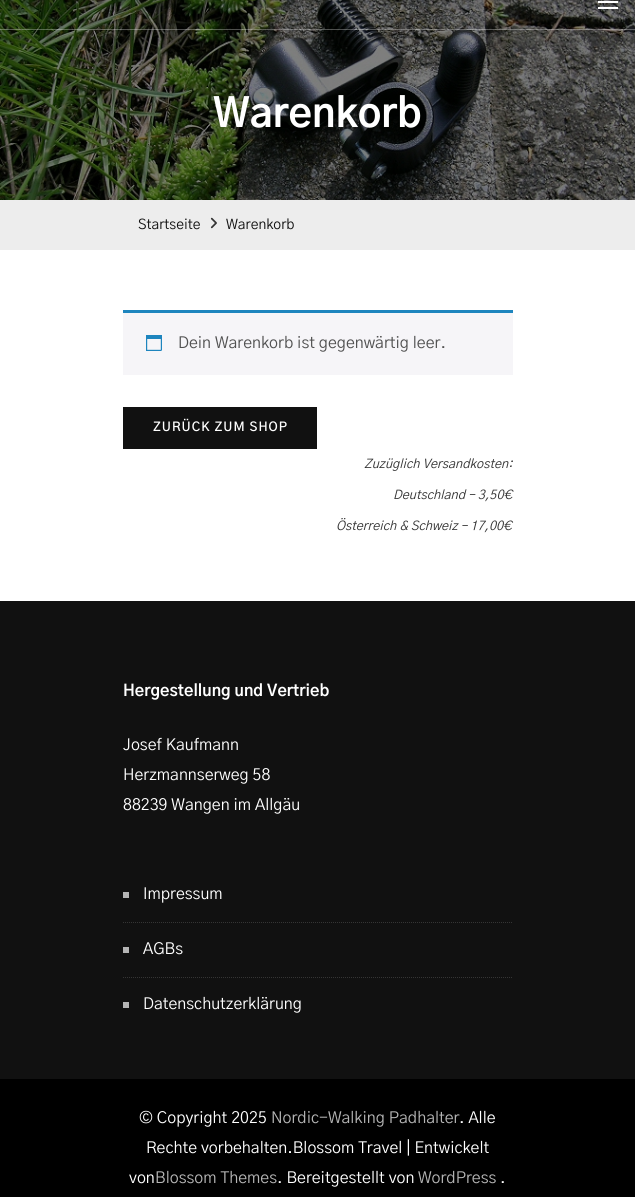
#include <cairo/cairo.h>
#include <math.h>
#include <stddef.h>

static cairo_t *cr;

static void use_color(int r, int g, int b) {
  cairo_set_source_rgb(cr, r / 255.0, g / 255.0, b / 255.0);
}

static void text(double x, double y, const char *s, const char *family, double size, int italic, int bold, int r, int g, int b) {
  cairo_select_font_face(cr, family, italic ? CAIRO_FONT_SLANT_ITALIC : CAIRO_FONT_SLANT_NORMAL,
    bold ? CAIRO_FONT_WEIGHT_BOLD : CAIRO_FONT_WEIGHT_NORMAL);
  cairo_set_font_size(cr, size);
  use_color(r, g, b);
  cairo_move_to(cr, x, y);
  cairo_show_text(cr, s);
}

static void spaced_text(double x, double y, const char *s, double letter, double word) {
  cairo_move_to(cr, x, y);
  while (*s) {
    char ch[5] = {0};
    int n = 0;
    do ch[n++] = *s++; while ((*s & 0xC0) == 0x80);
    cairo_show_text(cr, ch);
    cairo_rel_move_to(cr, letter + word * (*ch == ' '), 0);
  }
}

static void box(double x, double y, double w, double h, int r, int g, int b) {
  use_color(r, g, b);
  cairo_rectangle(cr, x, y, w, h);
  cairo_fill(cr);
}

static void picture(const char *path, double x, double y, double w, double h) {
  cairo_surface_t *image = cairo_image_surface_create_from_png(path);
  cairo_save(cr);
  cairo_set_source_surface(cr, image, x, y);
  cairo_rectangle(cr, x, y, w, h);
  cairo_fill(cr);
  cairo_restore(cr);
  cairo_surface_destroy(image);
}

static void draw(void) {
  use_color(255, 255, 255);
  cairo_paint(cr);
  picture("img_01.png", 0, 0, 635, 200);
  cairo_set_source_rgba(cr, 1, 1, 1, 0.3);
  cairo_rectangle(cr, 0, 29, 635, 1);
  cairo_fill(cr);
  box(598, 1, 20, 2, 255, 255, 255);
  box(598, 7, 20, 2, 255, 255, 255);
  box(0, 200, 635, 50, 237, 237, 237);
  picture("img_02.png", 210, 217, 7, 12);
  box(123, 313, 390, 62, 246, 245, 248);
  box(123, 310, 390, 3, 30, 133, 190);
  picture("img_03.png", 146, 335, 16, 16);
  box(123, 407, 194, 42, 17, 17, 17);
  box(0, 601, 635, 478, 17, 17, 17);
  cairo_new_path(cr);
  cairo_move_to(cr, 123, 922.5);
  cairo_line_to(cr, 513, 922.5);
  use_color(53, 53, 53);
  cairo_set_line_width(cr, 1);
  cairo_set_dash(cr, (double[]){1, 1}, 2, 0);
  cairo_stroke(cr);
  box(123, 892, 6, 6, 181, 181, 181);
  cairo_new_path(cr);
  cairo_move_to(cr, 123, 977.5);
  cairo_line_to(cr, 513, 977.5);
  use_color(53, 53, 53);
  cairo_stroke(cr);
  box(123, 947, 6, 6, 181, 181, 181);
  box(123, 1002, 6, 6, 181, 181, 181);
  box(0, 1079, 635, 118, 0, 0, 0);
  text(213, 127, "Warenkorb", "Gothic A1", 40, 0, 1, 255, 255, 255);
  text(138, 229, "Startseite", "Gothic A1", 14, 0, 0, 17, 17, 17);
  text(226, 229, "Warenkorb", "Gothic A1", 14, 0, 0, 17, 17, 17);
  text(178, 348, "Dein Warenkorb ist gegenwärtig leer.", "Gothic A1", 16, 0, 0, 81, 81, 81);
  cairo_select_font_face(cr, "Gothic A1 SemiBold", CAIRO_FONT_SLANT_NORMAL, CAIRO_FONT_WEIGHT_NORMAL);
  cairo_set_font_size(cr, 12.5);
  use_color(255, 255, 255);
  spaced_text(153, 431, "ZURÜCK ZUM SHOP", 1, 0);
  text(364, 468, "Zuzüglich Versandkosten:", "Gothic A1", 12.75, 1, 0, 52, 52, 52);
  text(393, 499, "Deutschland – 3,50€", "Gothic A1", 12.75, 1, 0, 52, 52, 52);
  text(336, 530, "Österreich & Schweiz – 17,00€", "Gothic A1", 12.75, 1, 0, 52, 52, 52);
  text(123, 696, "Hergestellung und Vertrieb", "Gothic A1", 16, 0, 1, 255, 255, 255);
  text(123, 750, "Josef Kaufmann", "Gothic A1", 16, 0, 0, 255, 255, 255);
  text(123, 780, "Herzmannserweg 58", "Gothic A1", 16, 0, 0, 255, 255, 255);
  text(123, 810, "88239 Wangen im Allgäu", "Gothic A1", 16, 0, 0, 255, 255, 255);
  text(143, 899, "Impressum", "Gothic A1", 16, 0, 0, 255, 255, 255);
  text(143, 954, "AGBs", "Gothic A1", 16, 0, 0, 255, 255, 255);
  text(143, 1009, "Datenschutzerklärung", "Gothic A1", 16, 0, 0, 255, 255, 255);
  text(139, 1123, "© Copyright 2025", "Gothic A1", 16, 0, 0, 255, 255, 255);
  text(271, 1123, "Nordic-Walking Padhalter", "Gothic A1", 16, 0, 0, 181, 181, 181);
  text(459, 1123, ". Alle", "Gothic A1", 16, 0, 0, 255, 255, 255);
  text(146, 1153, "Rechte vorbehalten.Blossom Travel | Entwickelt", "Gothic A1", 16, 0, 0, 255, 255, 255);
  text(129, 1183, "von", "Gothic A1", 16, 0, 0, 255, 255, 255);
  text(155, 1183, "Blossom Themes", "Gothic A1", 16, 0, 0, 181, 181, 181);
  text(277, 1183, ". Bereitgestellt von", "Gothic A1", 16, 0, 0, 255, 255, 255);
  text(418, 1183, "WordPress", "Gothic A1", 16, 0, 0, 181, 181, 181);
  text(500, 1183, ".", "Gothic A1", 16, 0, 0, 255, 255, 255);
}

int main(void) {
  cairo_surface_t *surface = cairo_image_surface_create(CAIRO_FORMAT_RGB24, 635, 1197);
  cr = cairo_create(surface);
  cairo_font_options_t *options = cairo_font_options_create();
  cairo_font_options_set_hint_metrics(options, CAIRO_HINT_METRICS_OFF);
  cairo_font_options_set_hint_style(options, CAIRO_HINT_STYLE_NONE);
  cairo_set_font_options(cr, options);
  cairo_set_miter_limit(cr, 4);
  draw();
  cairo_surface_write_to_png(surface, "out.png");
  cairo_font_options_destroy(options);
  cairo_destroy(cr);
  cairo_surface_destroy(surface);
  return 0;
}
